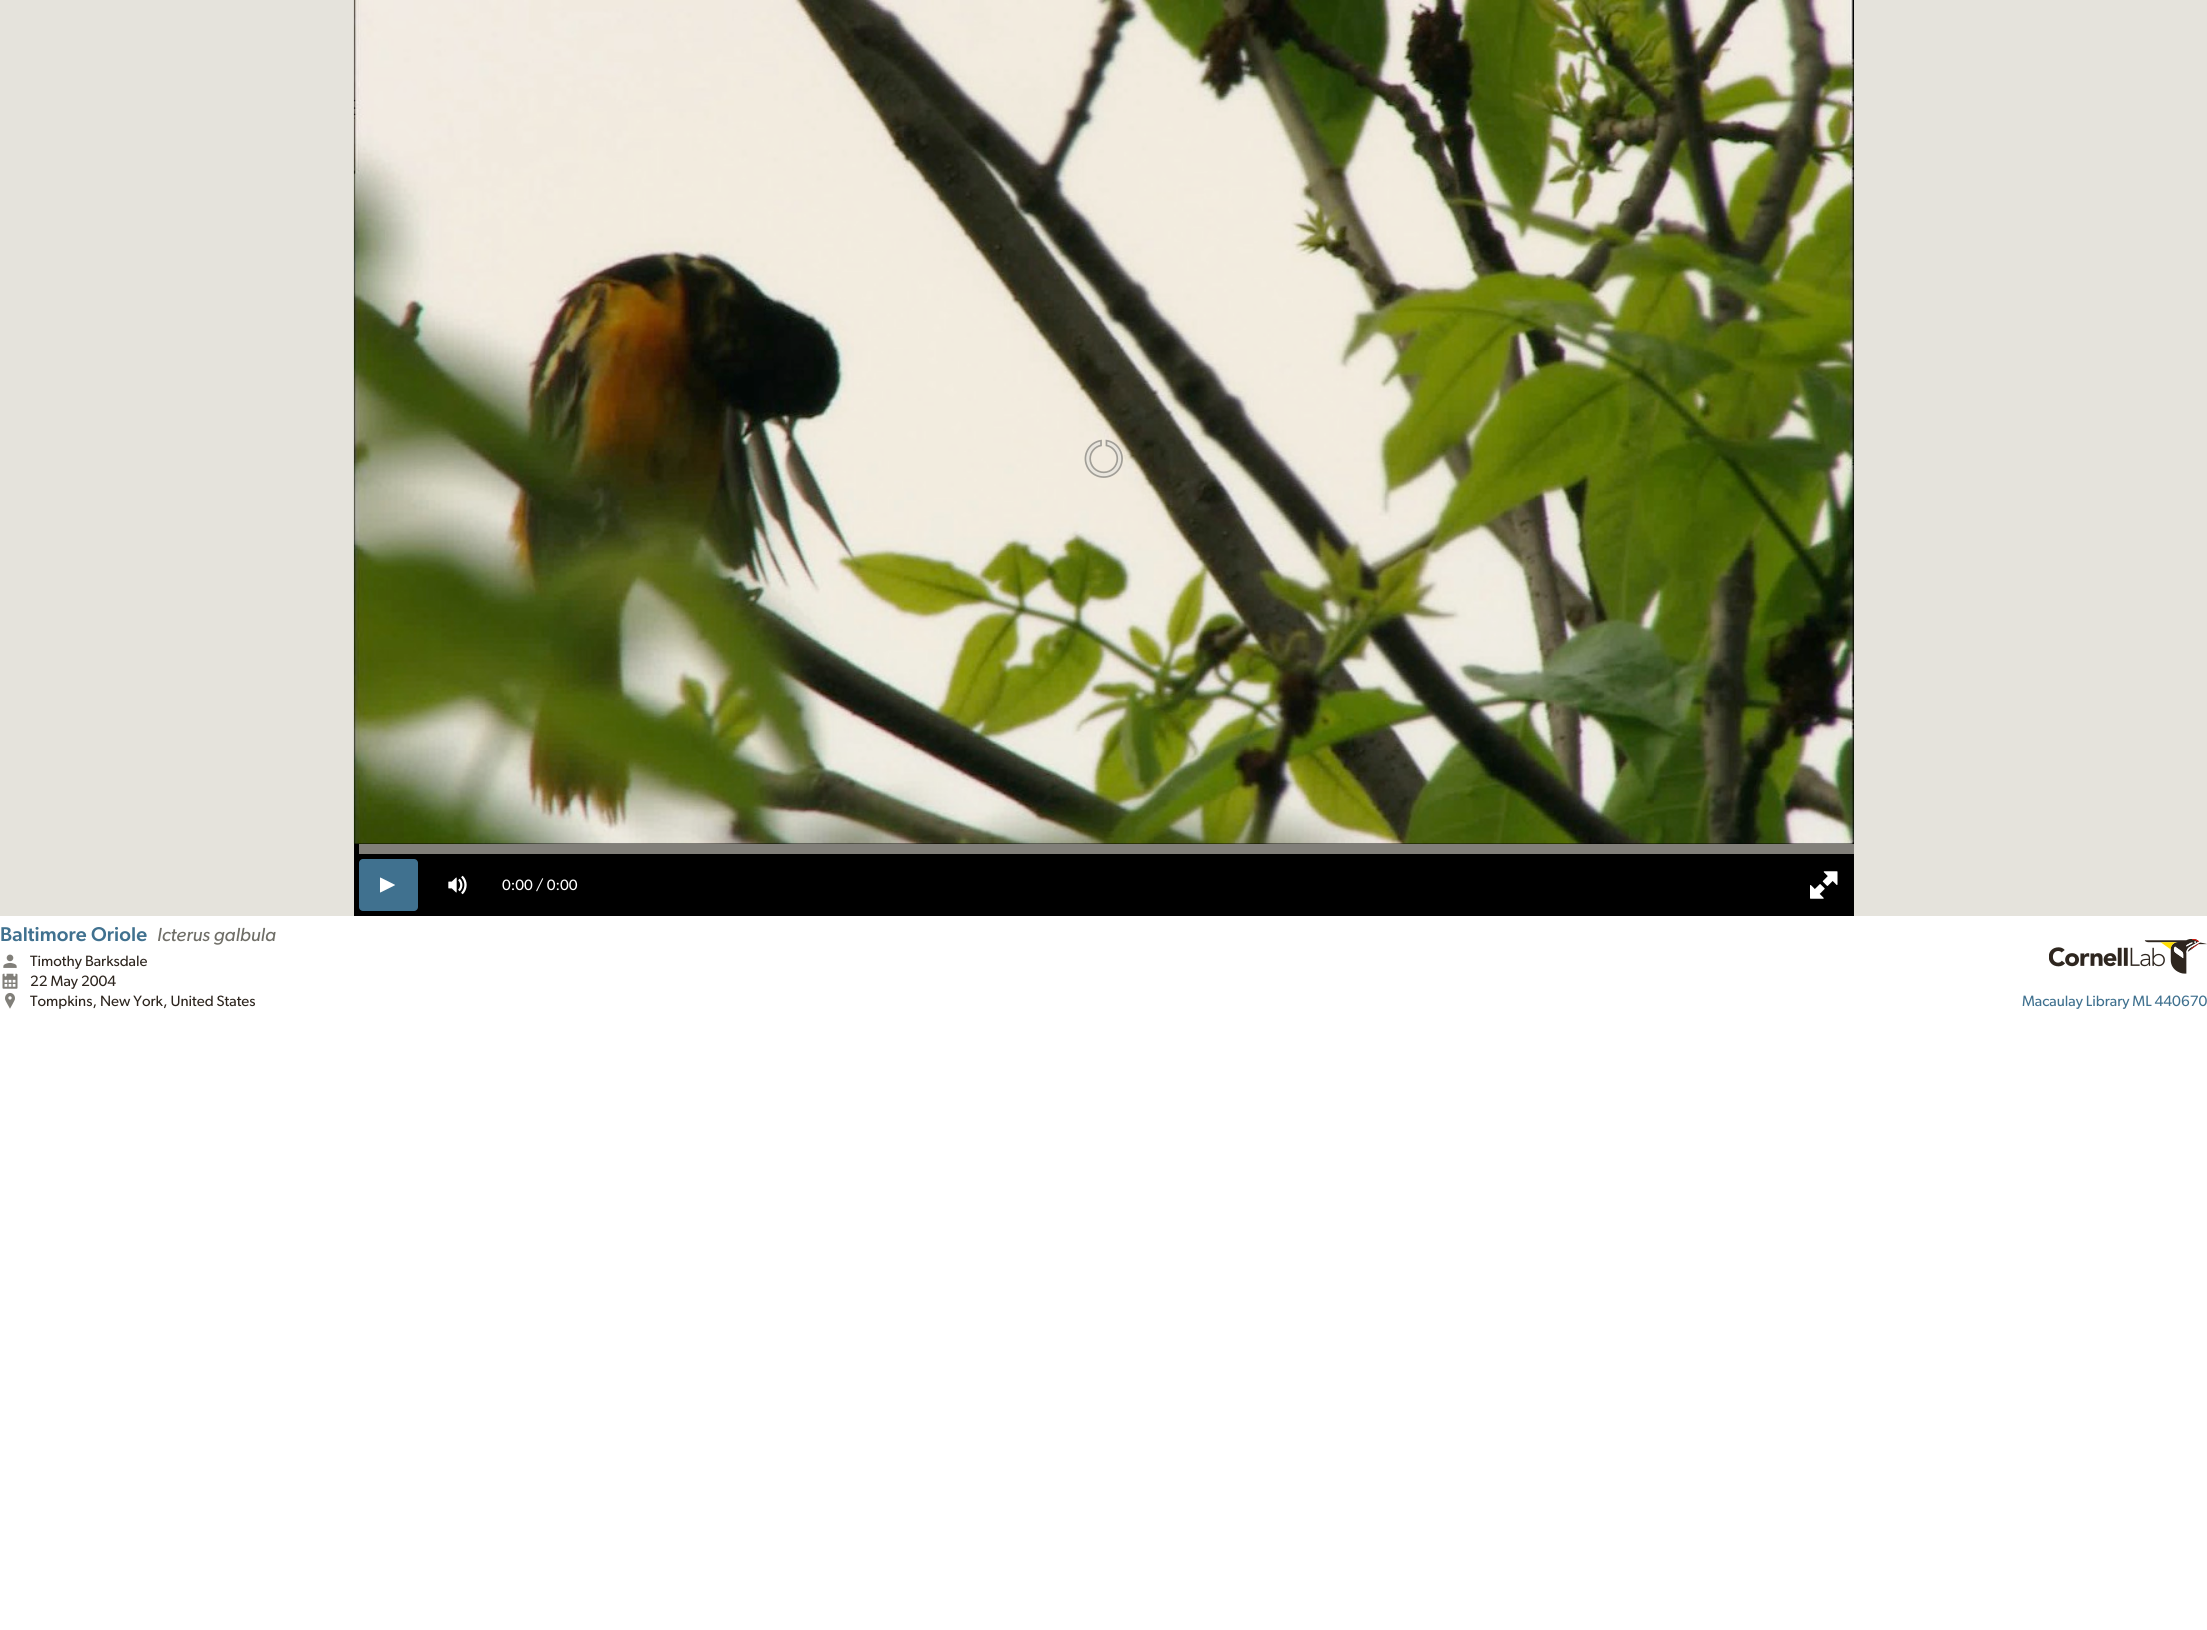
#include <cairo/cairo.h>
#include <math.h>
#include <stddef.h>

static cairo_t *cr;

static void use_color(int r, int g, int b) {
  cairo_set_source_rgb(cr, r / 255.0, g / 255.0, b / 255.0);
}

static void text(double x, double y, const char *s, const char *family, double size, int italic, int bold, int r, int g, int b) {
  cairo_select_font_face(cr, family, italic ? CAIRO_FONT_SLANT_ITALIC : CAIRO_FONT_SLANT_NORMAL,
    bold ? CAIRO_FONT_WEIGHT_BOLD : CAIRO_FONT_WEIGHT_NORMAL);
  cairo_set_font_size(cr, size);
  use_color(r, g, b);
  cairo_move_to(cr, x, y);
  cairo_show_text(cr, s);
}

static void spaced_text(double x, double y, const char *s, double letter, double word) {
  cairo_move_to(cr, x, y);
  while (*s) {
    char ch[5] = {0};
    int n = 0;
    do ch[n++] = *s++; while ((*s & 0xC0) == 0x80);
    cairo_show_text(cr, ch);
    cairo_rel_move_to(cr, letter + word * (*ch == ' '), 0);
  }
}

static void box(double x, double y, double w, double h, int r, int g, int b) {
  use_color(r, g, b);
  cairo_rectangle(cr, x, y, w, h);
  cairo_fill(cr);
}

static void round_rect(double x, double y, double w, double h, double r) {
  cairo_new_sub_path(cr);
  cairo_arc(cr, x + w - r, y + h - r, r, 0, M_PI / 2);
  cairo_arc(cr, x + r, y + h - r, r, M_PI / 2, M_PI);
  cairo_arc(cr, x + r, y + r, r, M_PI, 1.5 * M_PI);
  cairo_arc(cr, x + w - r, y + r, r, 1.5 * M_PI, 2 * M_PI);
  cairo_close_path(cr);
}

static void picture(const char *path, double x, double y, double w, double h) {
  cairo_surface_t *image = cairo_image_surface_create_from_png(path);
  cairo_save(cr);
  cairo_set_source_surface(cr, image, x, y);
  cairo_rectangle(cr, x, y, w, h);
  cairo_fill(cr);
  cairo_restore(cr);
  cairo_surface_destroy(image);
}

static void draw(void) {
  use_color(255, 255, 255);
  cairo_paint(cr);
  box(0, 0, 2207, 916, 229, 227, 220);
  box(354, 0, 1500, 916, 0, 0, 0);
  picture("img_01.png", 353, 0, 1501, 844);
  picture("img_02.png", 1084, 439, 39, 39);
  box(359, 844, 1495, 10, 129, 127, 121);
  use_color(64, 113, 143);
  round_rect(359, 859, 59, 52, 4);
  cairo_fill(cr);
  picture("img_03.png", 380, 877, 15, 16);
  picture("img_04.png", 448, 875, 19, 20);
  picture("img_05.png", 1810, 871, 28, 28);
  picture("img_06.png", 3, 954, 14, 14);
  picture("img_07.png", 2, 973, 16, 16);
  picture("img_08.png", 5, 992, 10, 17);
  picture("img_09.png", 2049, 939, 158, 35);
  text(502, 890, "0:00 / 0:00", "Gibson", 15, 0, 0, 255, 255, 255);
  cairo_select_font_face(cr, "Gibson Medium", CAIRO_FONT_SLANT_NORMAL, CAIRO_FONT_WEIGHT_NORMAL);
  cairo_set_font_size(cr, 20);
  use_color(64, 113, 143);
  spaced_text(0, 941, "Baltimore Oriole", 0.1, 0);
  text(157, 941, "Icterus galbula", "Gibson", 19, 1, 0, 111, 110, 103);
  text(30, 966, "Timothy Barksdale", "Gibson", 15, 0, 0, 46, 38, 31);
  text(30, 986, "22 May 2004", "Gibson", 15, 0, 0, 46, 38, 31);
  text(30, 1006, "Tompkins, New York, United States", "Gibson", 15, 0, 0, 46, 38, 31);
  text(2022, 1006, "Macaulay Library ML 440670", "Gibson", 15, 0, 0, 64, 113, 143);
}

int main(void) {
  cairo_surface_t *surface = cairo_image_surface_create(CAIRO_FORMAT_RGB24, 2207, 1630);
  cr = cairo_create(surface);
  cairo_font_options_t *options = cairo_font_options_create();
  cairo_font_options_set_hint_metrics(options, CAIRO_HINT_METRICS_OFF);
  cairo_font_options_set_hint_style(options, CAIRO_HINT_STYLE_NONE);
  cairo_set_font_options(cr, options);
  cairo_set_miter_limit(cr, 4);
  draw();
  cairo_surface_write_to_png(surface, "out.png");
  cairo_font_options_destroy(options);
  cairo_destroy(cr);
  cairo_surface_destroy(surface);
  return 0;
}
